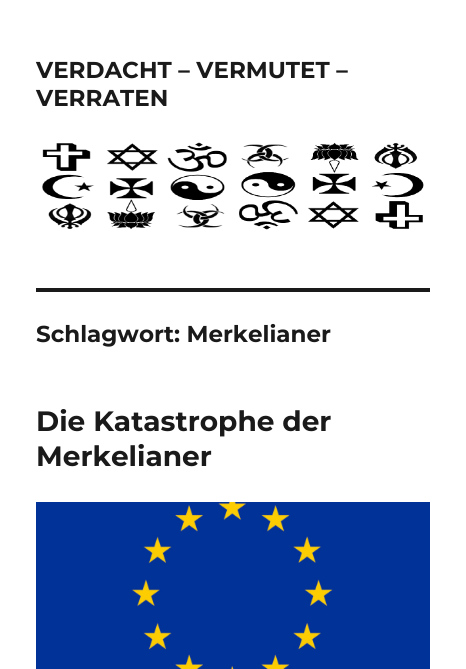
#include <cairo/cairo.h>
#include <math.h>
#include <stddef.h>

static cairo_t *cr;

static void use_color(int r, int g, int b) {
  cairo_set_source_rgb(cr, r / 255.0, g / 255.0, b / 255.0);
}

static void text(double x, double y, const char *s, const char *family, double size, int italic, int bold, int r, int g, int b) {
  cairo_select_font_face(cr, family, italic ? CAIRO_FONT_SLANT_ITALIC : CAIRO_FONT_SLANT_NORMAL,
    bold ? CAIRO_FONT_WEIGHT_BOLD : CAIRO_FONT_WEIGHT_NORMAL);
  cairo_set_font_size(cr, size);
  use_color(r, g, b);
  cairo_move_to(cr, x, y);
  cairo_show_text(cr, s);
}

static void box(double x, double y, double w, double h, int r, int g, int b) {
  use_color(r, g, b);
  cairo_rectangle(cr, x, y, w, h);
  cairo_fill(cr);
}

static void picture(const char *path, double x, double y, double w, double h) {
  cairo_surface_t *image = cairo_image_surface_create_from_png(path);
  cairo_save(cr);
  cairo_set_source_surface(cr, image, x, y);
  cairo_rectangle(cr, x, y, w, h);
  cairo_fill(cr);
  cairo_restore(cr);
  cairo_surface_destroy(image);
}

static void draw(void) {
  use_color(255, 255, 255);
  cairo_paint(cr);
  picture("img_01.png", 42, 142, 382, 88);
  box(36, 288, 394, 4, 26, 26, 26);
  picture("img_02.png", 36, 502, 394, 167);
  text(36, 78, "VERDACHT – VERMUTET –", "Montserrat Thin", 23, 0, 0, 26, 26, 26);
  text(36, 106, "VERRATEN", "Montserrat Thin", 23, 0, 0, 26, 26, 26);
  text(36, 342, "Schlagwort: Merkelianer", "Montserrat Thin", 23, 0, 0, 26, 26, 26);
  text(36, 431, "Die Katastrophe der", "Montserrat Thin", 28, 0, 0, 26, 26, 26);
  text(36, 466, "Merkelianer", "Montserrat Thin", 28, 0, 0, 26, 26, 26);
}

int main(void) {
  cairo_surface_t *surface = cairo_image_surface_create(CAIRO_FORMAT_RGB24, 466, 669);
  cr = cairo_create(surface);
  cairo_font_options_t *options = cairo_font_options_create();
  cairo_font_options_set_hint_metrics(options, CAIRO_HINT_METRICS_OFF);
  cairo_font_options_set_hint_style(options, CAIRO_HINT_STYLE_NONE);
  cairo_set_font_options(cr, options);
  cairo_set_miter_limit(cr, 4);
  draw();
  cairo_surface_write_to_png(surface, "out.png");
  cairo_font_options_destroy(options);
  cairo_destroy(cr);
  cairo_surface_destroy(surface);
  return 0;
}
